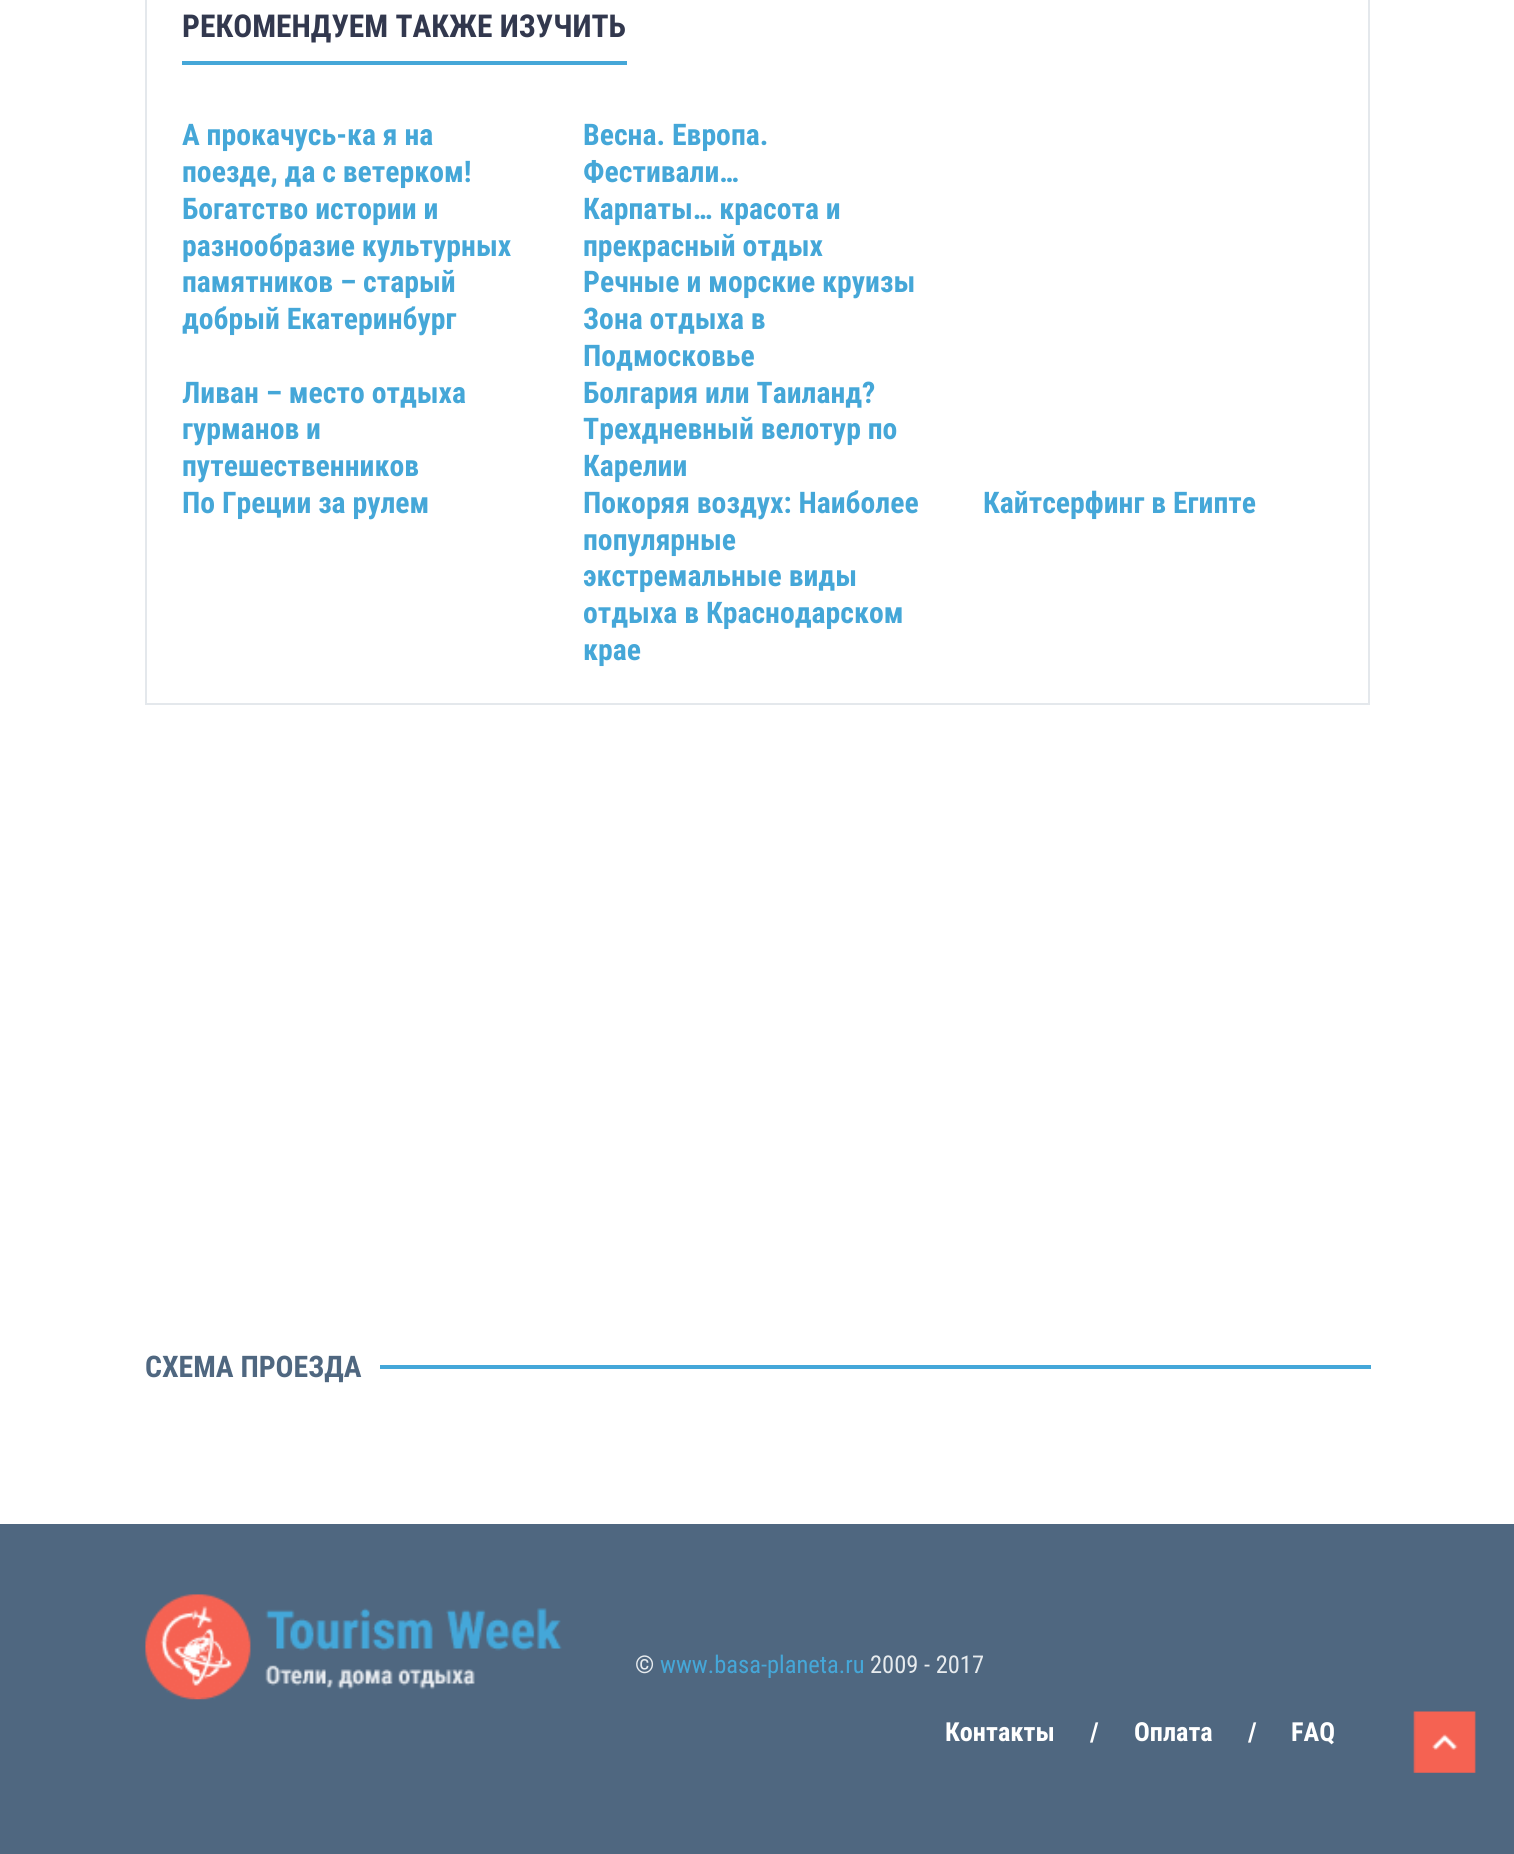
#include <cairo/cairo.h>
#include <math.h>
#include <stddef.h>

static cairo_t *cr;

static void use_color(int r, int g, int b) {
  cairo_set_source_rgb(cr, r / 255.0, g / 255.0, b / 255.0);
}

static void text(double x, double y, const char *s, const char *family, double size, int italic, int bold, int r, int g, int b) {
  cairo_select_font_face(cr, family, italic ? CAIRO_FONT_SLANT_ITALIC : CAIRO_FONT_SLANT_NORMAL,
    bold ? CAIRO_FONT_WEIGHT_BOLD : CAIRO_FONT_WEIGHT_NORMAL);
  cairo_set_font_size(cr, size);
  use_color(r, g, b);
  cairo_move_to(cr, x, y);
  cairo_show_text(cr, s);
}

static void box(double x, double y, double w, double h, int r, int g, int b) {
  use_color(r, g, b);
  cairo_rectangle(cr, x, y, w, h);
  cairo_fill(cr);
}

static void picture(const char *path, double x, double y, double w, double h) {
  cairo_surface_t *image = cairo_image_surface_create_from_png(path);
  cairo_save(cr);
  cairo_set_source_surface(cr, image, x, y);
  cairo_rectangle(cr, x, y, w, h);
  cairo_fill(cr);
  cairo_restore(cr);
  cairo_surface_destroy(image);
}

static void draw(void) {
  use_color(255, 255, 255);
  cairo_paint(cr);
  cairo_rectangle(cr, 146, -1, 1223, 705);
  use_color(228, 232, 236);
  cairo_stroke(cr);
  box(182, 61, 445, 4, 69, 167, 216);
  box(380, 1365, 991, 4, 68, 167, 217);
  box(0, 1524, 1514, 330, 79, 103, 128);
  picture("img_01.png", 145, 1594, 417, 106);
  picture("img_02.png", 1413, 1711, 63, 62);
  text(182, 37, "РЕКОМЕНДУЕМ ТАКЖЕ ИЗУЧИТЬ", "Roboto Condensed", 31.5, 0, 1, 50, 56, 78);
  text(182, 145, "А прокачусь-ка я на", "Roboto Condensed", 29.75, 0, 1, 69, 167, 216);
  text(182, 182, "поезде, да с ветерком!", "Roboto Condensed", 29.75, 0, 1, 69, 167, 216);
  text(583, 145, "Весна. Европа.", "Roboto Condensed", 29.75, 0, 1, 69, 167, 216);
  text(583, 182, "Фестивали…", "Roboto Condensed", 29.75, 0, 1, 69, 167, 216);
  text(182, 219, "Богатство истории и", "Roboto Condensed", 29.75, 0, 1, 69, 167, 216);
  text(182, 256, "разнообразие культурных", "Roboto Condensed", 29.75, 0, 1, 69, 167, 216);
  text(182, 292, "памятников – старый", "Roboto Condensed", 29.75, 0, 1, 69, 167, 216);
  text(182, 329, "добрый Екатеринбург", "Roboto Condensed", 29.75, 0, 1, 69, 167, 216);
  text(583, 219, "Карпаты… красота и", "Roboto Condensed", 29.75, 0, 1, 69, 167, 216);
  text(583, 256, "прекрасный отдых", "Roboto Condensed", 29.75, 0, 1, 69, 167, 216);
  text(583, 292, "Речные и морские круизы", "Roboto Condensed", 29.75, 0, 1, 69, 167, 216);
  text(583, 329, "Зона отдыха в", "Roboto Condensed", 29.75, 0, 1, 69, 167, 216);
  text(583, 366, "Подмосковье", "Roboto Condensed", 29.75, 0, 1, 69, 167, 216);
  text(182, 403, "Ливан – место отдыха", "Roboto Condensed", 29.75, 0, 1, 69, 167, 216);
  text(182, 439, "гурманов и", "Roboto Condensed", 29.75, 0, 1, 69, 167, 216);
  text(182, 476, "путешественников", "Roboto Condensed", 29.75, 0, 1, 69, 167, 216);
  text(583, 403, "Болгария или Таиланд?", "Roboto Condensed", 29.75, 0, 1, 69, 167, 216);
  text(583, 439, "Трехдневный велотур по", "Roboto Condensed", 29.75, 0, 1, 69, 167, 216);
  text(583, 476, "Карелии", "Roboto Condensed", 29.75, 0, 1, 69, 167, 216);
  text(182, 513, "По Греции за рулем", "Roboto Condensed", 29.75, 0, 1, 69, 167, 216);
  text(583, 513, "Покоряя воздух: Наиболее", "Roboto Condensed", 29.75, 0, 1, 69, 167, 216);
  text(583, 550, "популярные", "Roboto Condensed", 29.75, 0, 1, 69, 167, 216);
  text(583, 586, "экстремальные виды", "Roboto Condensed", 29.75, 0, 1, 69, 167, 216);
  text(583, 623, "отдыха в Краснодарском", "Roboto Condensed", 29.75, 0, 1, 69, 167, 216);
  text(583, 660, "крае", "Roboto Condensed", 29.75, 0, 1, 69, 167, 216);
  text(983, 513, "Кайтсерфинг в Египте", "Roboto Condensed", 29.75, 0, 1, 69, 167, 216);
  text(145, 1377, "СХЕМА ПРОЕЗДА", "Roboto Condensed", 29.75, 0, 1, 79, 103, 128);
  text(635, 1673, "©", "Roboto Condensed", 24.5, 0, 0, 231, 235, 238);
  text(660, 1673, "www.basa-planeta.ru", "Roboto Condensed", 24.5, 0, 0, 69, 167, 216);
  text(870, 1673, "2009 - 2017", "Roboto Condensed", 24.5, 0, 0, 231, 235, 238);
  text(945, 1741, "Контакты", "Roboto Condensed", 26.25, 0, 1, 255, 255, 255);
  text(1090, 1741, "/", "Roboto Condensed", 26.25, 0, 1, 255, 255, 255);
  text(1134, 1741, "Оплата", "Roboto Condensed", 26.25, 0, 1, 255, 255, 255);
  text(1248, 1741, "/", "Roboto Condensed", 26.25, 0, 1, 255, 255, 255);
  text(1291, 1741, "FAQ", "Roboto Condensed", 26.25, 0, 1, 255, 255, 255);
}

int main(void) {
  cairo_surface_t *surface = cairo_image_surface_create(CAIRO_FORMAT_RGB24, 1514, 1854);
  cr = cairo_create(surface);
  cairo_font_options_t *options = cairo_font_options_create();
  cairo_font_options_set_hint_metrics(options, CAIRO_HINT_METRICS_OFF);
  cairo_font_options_set_hint_style(options, CAIRO_HINT_STYLE_NONE);
  cairo_set_font_options(cr, options);
  cairo_set_miter_limit(cr, 4);
  draw();
  cairo_surface_write_to_png(surface, "out.png");
  cairo_font_options_destroy(options);
  cairo_destroy(cr);
  cairo_surface_destroy(surface);
  return 0;
}
